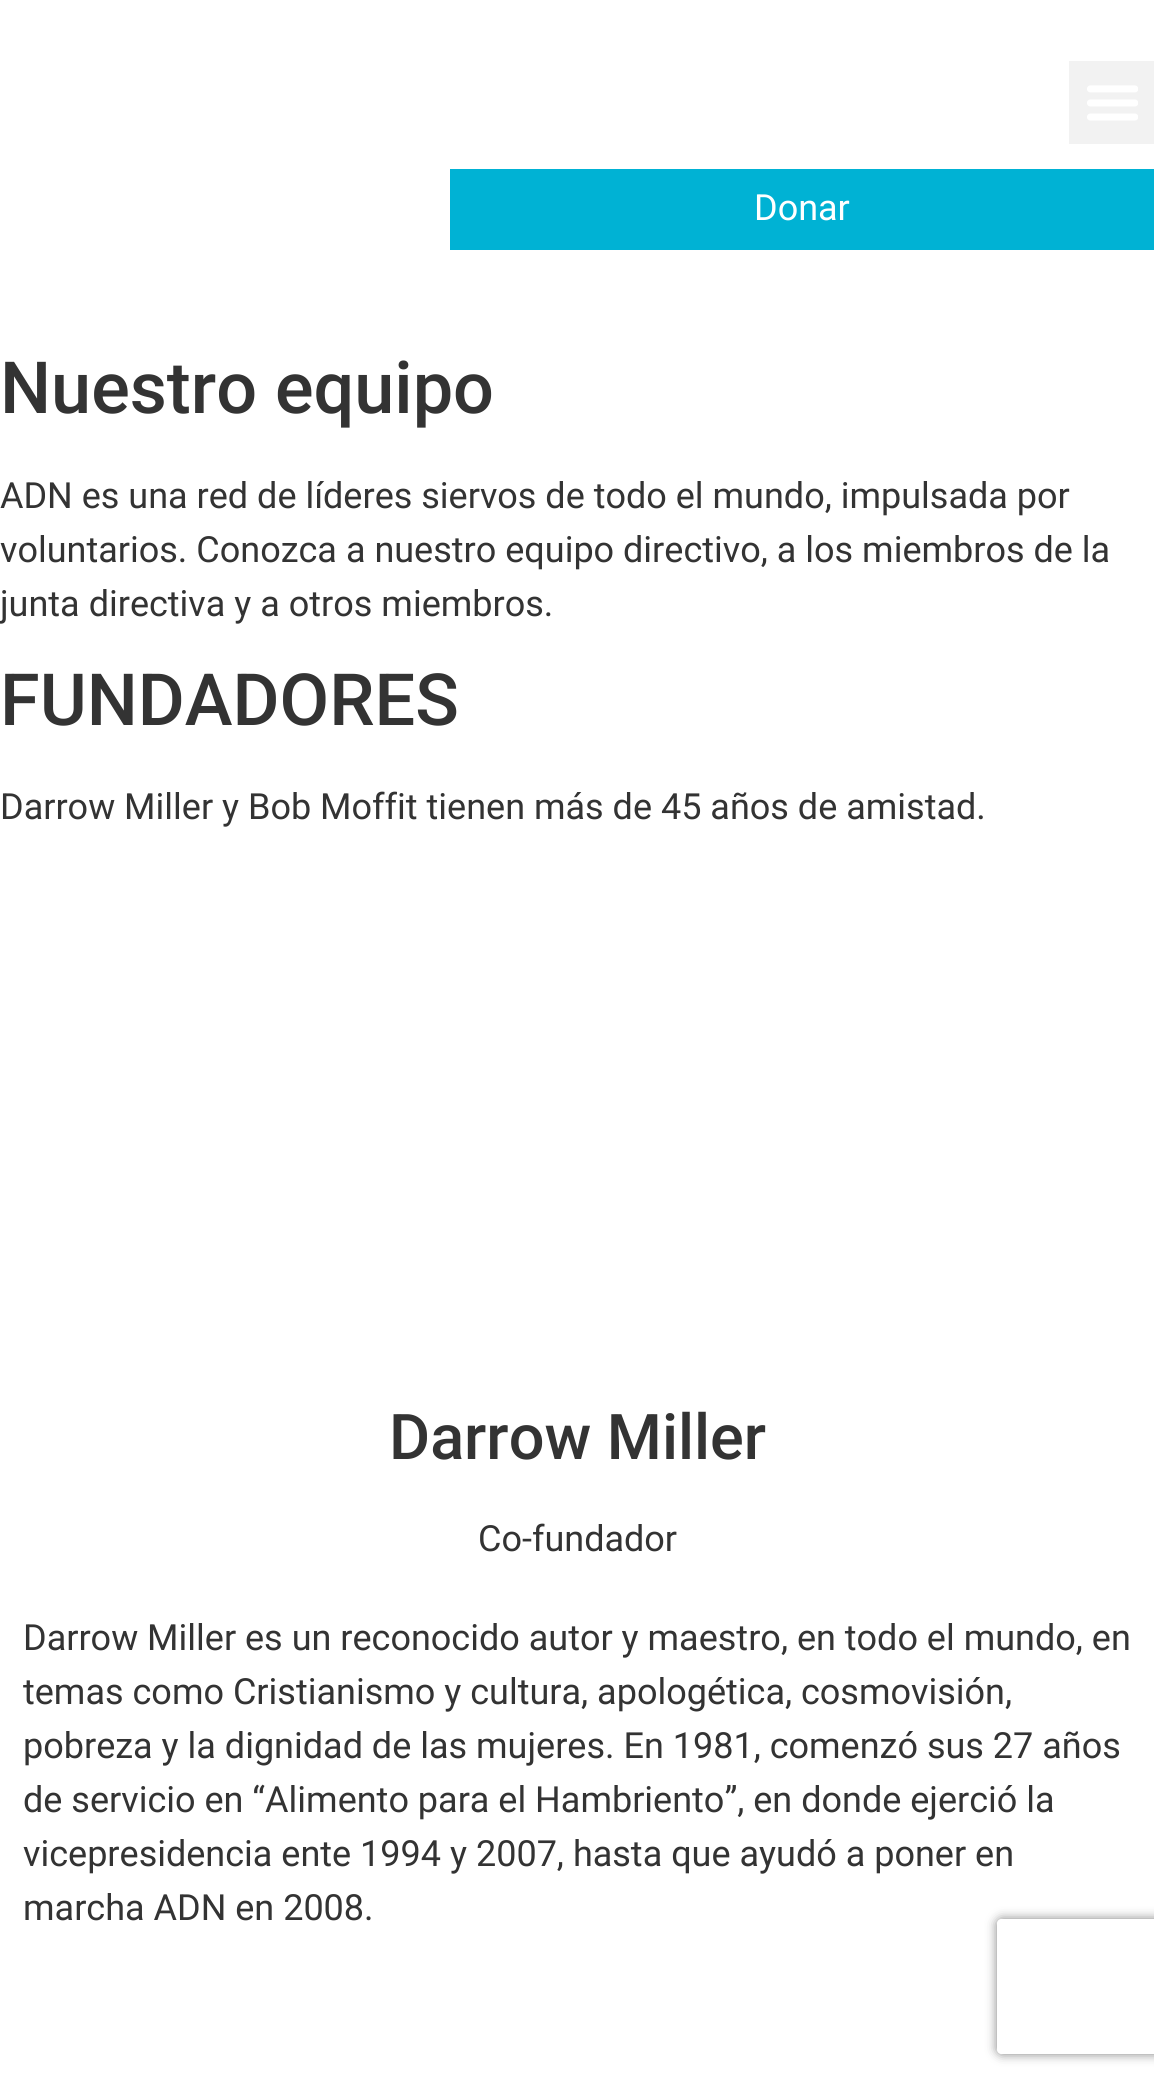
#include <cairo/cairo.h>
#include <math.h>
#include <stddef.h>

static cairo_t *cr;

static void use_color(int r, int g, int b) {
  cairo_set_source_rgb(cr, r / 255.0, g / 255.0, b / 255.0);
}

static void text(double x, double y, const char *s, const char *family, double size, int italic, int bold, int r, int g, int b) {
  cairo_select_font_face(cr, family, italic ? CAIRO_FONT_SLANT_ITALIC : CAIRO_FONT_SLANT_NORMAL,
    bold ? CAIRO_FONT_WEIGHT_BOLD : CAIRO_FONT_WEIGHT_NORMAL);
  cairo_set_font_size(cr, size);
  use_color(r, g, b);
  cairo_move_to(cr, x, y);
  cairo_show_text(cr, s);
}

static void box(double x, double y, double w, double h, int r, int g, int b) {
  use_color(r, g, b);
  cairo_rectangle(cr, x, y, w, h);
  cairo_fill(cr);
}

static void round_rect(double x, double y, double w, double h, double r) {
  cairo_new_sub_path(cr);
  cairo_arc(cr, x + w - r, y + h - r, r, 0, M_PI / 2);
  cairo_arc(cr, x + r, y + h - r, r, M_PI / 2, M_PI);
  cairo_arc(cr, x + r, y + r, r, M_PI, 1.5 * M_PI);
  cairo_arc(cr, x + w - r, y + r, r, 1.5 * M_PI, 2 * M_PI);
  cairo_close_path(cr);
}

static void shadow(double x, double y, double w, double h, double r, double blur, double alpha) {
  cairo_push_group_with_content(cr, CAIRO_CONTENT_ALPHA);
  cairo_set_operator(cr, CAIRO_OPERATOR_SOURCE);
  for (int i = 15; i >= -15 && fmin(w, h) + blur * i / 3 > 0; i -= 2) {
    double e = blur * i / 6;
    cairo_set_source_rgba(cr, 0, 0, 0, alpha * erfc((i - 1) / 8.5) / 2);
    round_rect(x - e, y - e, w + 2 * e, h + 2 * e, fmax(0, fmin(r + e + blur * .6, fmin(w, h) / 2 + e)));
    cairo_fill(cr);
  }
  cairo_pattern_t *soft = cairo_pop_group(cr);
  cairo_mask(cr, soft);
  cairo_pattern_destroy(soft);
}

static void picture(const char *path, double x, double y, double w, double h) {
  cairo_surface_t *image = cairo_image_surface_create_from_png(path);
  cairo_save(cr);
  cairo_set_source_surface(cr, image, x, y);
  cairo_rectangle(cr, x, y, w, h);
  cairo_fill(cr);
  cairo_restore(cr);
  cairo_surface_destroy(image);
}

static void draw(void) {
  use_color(255, 255, 255);
  cairo_paint(cr);
  box(1069, 61, 85, 83, 242, 242, 242);
  picture("img_01.png", 1087, 85, 51, 36);
  box(450, 169, 704, 81, 0, 178, 212);
  cairo_save(cr);
  cairo_set_fill_rule(cr, CAIRO_FILL_RULE_EVEN_ODD);
  cairo_new_path(cr);
  cairo_move_to(cr, 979, 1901);
  cairo_line_to(cr, 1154, 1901);
  cairo_line_to(cr, 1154, 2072);
  cairo_line_to(cr, 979, 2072);
  cairo_close_path(cr);
  cairo_move_to(cr, 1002, 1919);
  cairo_line_to(cr, 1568, 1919);
  cairo_curve_to(cr, 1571, 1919, 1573, 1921, 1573, 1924);
  cairo_line_to(cr, 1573, 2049);
  cairo_curve_to(cr, 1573, 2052, 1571, 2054, 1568, 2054);
  cairo_line_to(cr, 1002, 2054);
  cairo_curve_to(cr, 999, 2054, 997, 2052, 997, 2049);
  cairo_line_to(cr, 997, 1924);
  cairo_curve_to(cr, 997, 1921, 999, 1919, 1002, 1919);
  cairo_close_path(cr);
  cairo_clip(cr);
  use_color(128, 128, 128);
  shadow(997, 1919, 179, 135, 5, 5.5, 1);
  cairo_restore(cr);
  text(754, 220, "Donar", "Roboto", 36, 0, 0, 255, 255, 255);
  text(0, 413, "Nuestro equipo", "Roboto Medium", 72, 0, 0, 51, 51, 51);
  text(0, 508, "ADN es una red de líderes siervos de todo el mundo, impulsada por", "Roboto", 36, 0, 0, 51, 51, 51);
  text(0, 562, "voluntarios. Conozca a nuestro equipo directivo, a los miembros de la", "Roboto", 36, 0, 0, 51, 51, 51);
  text(0, 616, "junta directiva y a otros miembros.", "Roboto", 36, 0, 0, 51, 51, 51);
  text(0, 725, "FUNDADORES", "Roboto Medium", 72, 0, 0, 51, 51, 51);
  text(0, 819, "Darrow Miller y Bob Moffit tienen más de 45 años de amistad.", "Roboto", 36, 0, 0, 51, 51, 51);
  text(389, 1459, "Darrow Miller", "Roboto Medium", 63, 0, 0, 51, 51, 51);
  text(478, 1551, "Co-fundador", "Roboto", 36, 0, 0, 51, 51, 51);
  text(23, 1650, "Darrow Miller es un reconocido autor y maestro, en todo el mundo, en", "Roboto", 36, 0, 0, 51, 51, 51);
  text(23, 1704, "temas como Cristianismo y cultura, apologética, cosmovisión,", "Roboto", 36, 0, 0, 51, 51, 51);
  text(23, 1758, "pobreza y la dignidad de las mujeres. En 1981, comenzó sus 27 años", "Roboto", 36, 0, 0, 51, 51, 51);
  text(23, 1812, "de servicio en “Alimento para el Hambriento”, en donde ejerció la", "Roboto", 36, 0, 0, 51, 51, 51);
  text(23, 1866, "vicepresidencia ente 1994 y 2007, hasta que ayudó a poner en", "Roboto", 36, 0, 0, 51, 51, 51);
  text(23, 1920, "marcha ADN en 2008.", "Roboto", 36, 0, 0, 51, 51, 51);
}

int main(void) {
  cairo_surface_t *surface = cairo_image_surface_create(CAIRO_FORMAT_RGB24, 1154, 2084);
  cr = cairo_create(surface);
  cairo_font_options_t *options = cairo_font_options_create();
  cairo_font_options_set_hint_metrics(options, CAIRO_HINT_METRICS_OFF);
  cairo_font_options_set_hint_style(options, CAIRO_HINT_STYLE_NONE);
  cairo_set_font_options(cr, options);
  cairo_set_miter_limit(cr, 4);
  draw();
  cairo_surface_write_to_png(surface, "out.png");
  cairo_font_options_destroy(options);
  cairo_destroy(cr);
  cairo_surface_destroy(surface);
  return 0;
}
